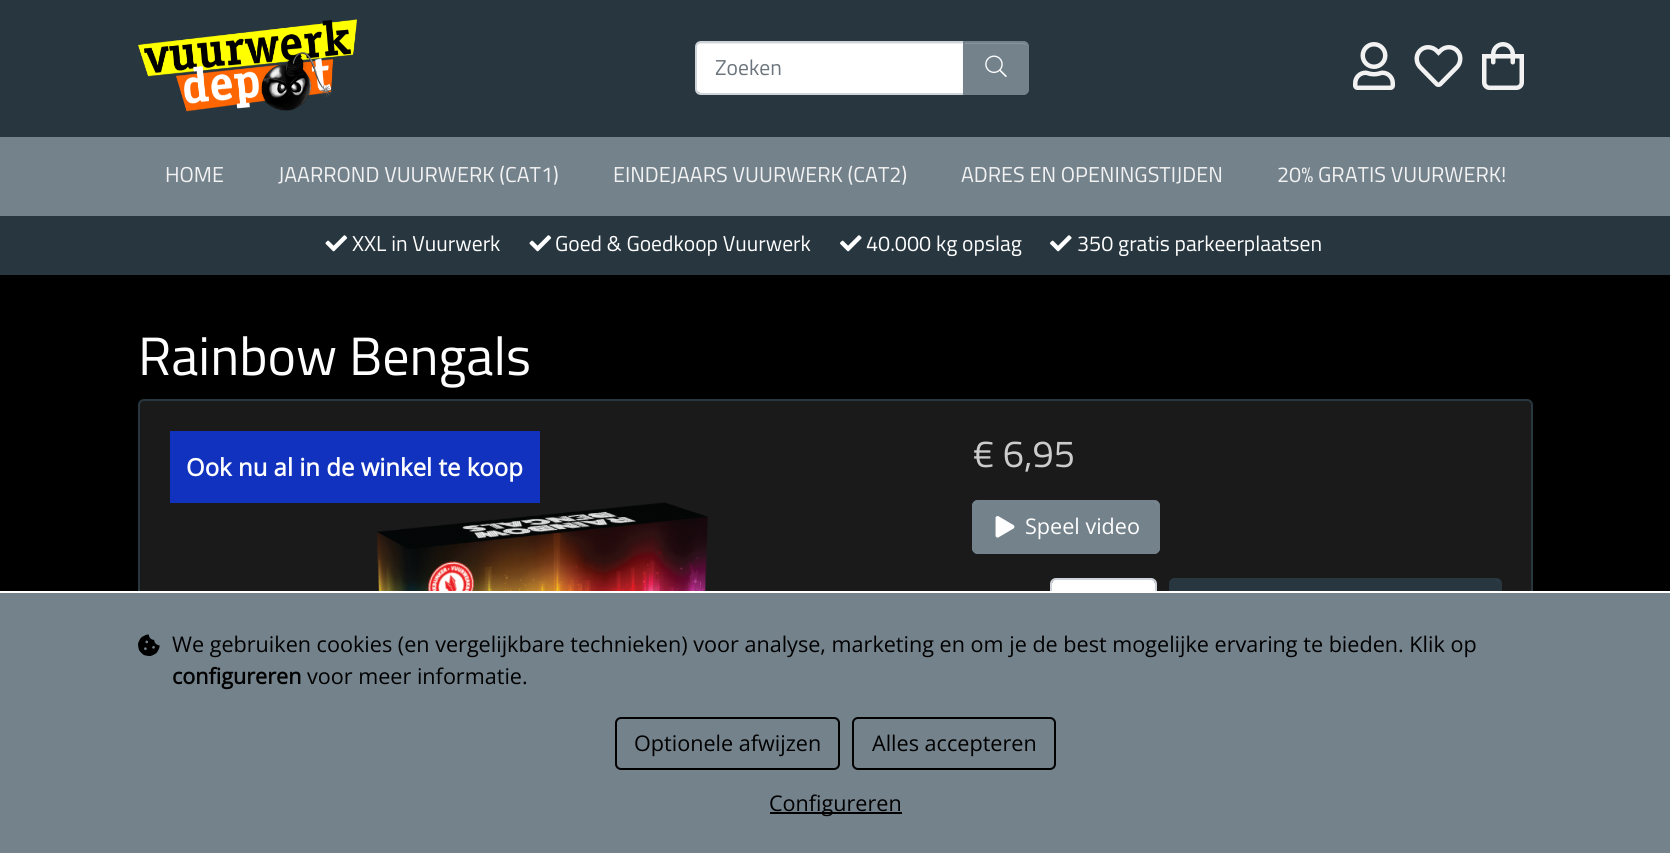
#include <cairo/cairo.h>
#include <math.h>
#include <stddef.h>

static cairo_t *cr;

static void use_color(int r, int g, int b) {
  cairo_set_source_rgb(cr, r / 255.0, g / 255.0, b / 255.0);
}

static void text(double x, double y, const char *s, const char *family, double size, int italic, int bold, int r, int g, int b) {
  cairo_select_font_face(cr, family, italic ? CAIRO_FONT_SLANT_ITALIC : CAIRO_FONT_SLANT_NORMAL,
    bold ? CAIRO_FONT_WEIGHT_BOLD : CAIRO_FONT_WEIGHT_NORMAL);
  cairo_set_font_size(cr, size);
  use_color(r, g, b);
  cairo_move_to(cr, x, y);
  cairo_show_text(cr, s);
}

static void box(double x, double y, double w, double h, int r, int g, int b) {
  use_color(r, g, b);
  cairo_rectangle(cr, x, y, w, h);
  cairo_fill(cr);
}

static void round_rect(double x, double y, double w, double h, double r) {
  cairo_new_sub_path(cr);
  cairo_arc(cr, x + w - r, y + h - r, r, 0, M_PI / 2);
  cairo_arc(cr, x + r, y + h - r, r, M_PI / 2, M_PI);
  cairo_arc(cr, x + r, y + r, r, M_PI, 1.5 * M_PI);
  cairo_arc(cr, x + w - r, y + r, r, 1.5 * M_PI, 2 * M_PI);
  cairo_close_path(cr);
}

static void shadow(double x, double y, double w, double h, double r, double blur, double alpha) {
  cairo_push_group_with_content(cr, CAIRO_CONTENT_ALPHA);
  cairo_set_operator(cr, CAIRO_OPERATOR_SOURCE);
  for (int i = 15; i >= -15 && fmin(w, h) + blur * i / 3 > 0; i -= 2) {
    double e = blur * i / 6;
    cairo_set_source_rgba(cr, 0, 0, 0, alpha * erfc((i - 1) / 8.5) / 2);
    round_rect(x - e, y - e, w + 2 * e, h + 2 * e, fmax(0, fmin(r + e + blur * .6, fmin(w, h) / 2 + e)));
    cairo_fill(cr);
  }
  cairo_pattern_t *soft = cairo_pop_group(cr);
  cairo_mask(cr, soft);
  cairo_pattern_destroy(soft);
}

static void picture(const char *path, double x, double y, double w, double h) {
  cairo_surface_t *image = cairo_image_surface_create_from_png(path);
  cairo_save(cr);
  cairo_set_source_surface(cr, image, x, y);
  cairo_rectangle(cr, x, y, w, h);
  cairo_fill(cr);
  cairo_restore(cr);
  cairo_surface_destroy(image);
}

static void draw(void) {
  use_color(0, 0, 0);
  cairo_paint(cr);
  box(0, 0, 1670, 137, 39, 54, 63);
  picture("img_01.png", 138, 19, 219, 93);
  use_color(255, 255, 255);
  cairo_new_path(cr);
  cairo_move_to(cr, 701, 42);
  cairo_line_to(cr, 963, 42);
  cairo_line_to(cr, 963, 93);
  cairo_line_to(cr, 701, 93);
  cairo_curve_to(cr, 698, 93, 696, 91, 696, 88);
  cairo_line_to(cr, 696, 47);
  cairo_curve_to(cr, 696, 44, 698, 42, 701, 42);
  cairo_close_path(cr);
  cairo_fill(cr);
  cairo_set_source_rgba(cr, 0, 0, 0, 0.07);
  cairo_new_path(cr);
  cairo_move_to(cr, 700, 44);
  cairo_line_to(cr, 963, 44);
  cairo_line_to(cr, 963, 42);
  cairo_line_to(cr, 701, 42);
  cairo_curve_to(cr, 698, 42, 696, 45, 696, 48);
  cairo_curve_to(cr, 696, 46, 698, 44, 700, 44);
  cairo_close_path(cr);
  cairo_fill(cr);
  cairo_new_path(cr);
  cairo_move_to(cr, 701, 42);
  cairo_line_to(cr, 964, 42);
  cairo_line_to(cr, 964, 94);
  cairo_line_to(cr, 701, 94);
  cairo_curve_to(cr, 698, 94, 696, 92, 696, 89);
  cairo_line_to(cr, 696, 47);
  cairo_curve_to(cr, 696, 44, 698, 42, 701, 42);
  cairo_close_path(cr);
  use_color(206, 212, 218);
  cairo_stroke(cr);
  use_color(0, 0, 0);
  shadow(963, 42, 66, 54, 6, 1, 0.07);
  use_color(116, 130, 140);
  cairo_new_path(cr);
  cairo_move_to(cr, 963, 41);
  cairo_line_to(cr, 1023, 41);
  cairo_curve_to(cr, 1026.5, 41, 1029, 43.5, 1029, 47);
  cairo_line_to(cr, 1029, 89);
  cairo_curve_to(cr, 1029, 92.5, 1026.5, 95, 1023, 95);
  cairo_line_to(cr, 963, 95);
  cairo_close_path(cr);
  cairo_fill(cr);
  use_color(137, 149, 157);
  cairo_new_path(cr);
  cairo_move_to(cr, 965, 42);
  cairo_line_to(cr, 965, 44);
  cairo_line_to(cr, 1023, 44);
  cairo_curve_to(cr, 1025, 44, 1028, 46, 1028, 48);
  cairo_curve_to(cr, 1028, 45, 1026, 42, 1023, 42);
  cairo_close_path(cr);
  cairo_fill(cr);
  cairo_new_path(cr);
  cairo_move_to(cr, 964, 42);
  cairo_line_to(cr, 1023, 42);
  cairo_curve_to(cr, 1026, 42, 1028, 44, 1028, 47);
  cairo_line_to(cr, 1028, 89);
  cairo_curve_to(cr, 1028, 92, 1026, 94, 1023, 94);
  cairo_line_to(cr, 964, 94);
  cairo_close_path(cr);
  use_color(116, 130, 140);
  cairo_stroke(cr);
  picture("img_02.png", 985, 55, 22, 22);
  picture("img_03.png", 1353, 42, 42, 48);
  picture("img_04.png", 1414, 45, 49, 42);
  picture("img_05.png", 1482, 42, 42, 48);
  box(0, 137, 1670, 79, 116, 130, 140);
  box(0, 216, 1670, 59, 39, 54, 63);
  picture("img_06.png", 325, 235, 23, 17);
  picture("img_06.png", 529, 235, 23, 17);
  picture("img_07.png", 840, 235, 22, 17);
  picture("img_07.png", 1050, 235, 22, 17);
  use_color(26, 26, 26);
  round_rect(139, 400, 1393, 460, 5);
  cairo_fill_preserve(cr);
  use_color(39, 54, 63);
  cairo_stroke(cr);
  picture("img_08.png", 377, 502, 332, 89);
  box(170, 431, 370, 72, 16, 50, 190);
  use_color(116, 130, 140);
  round_rect(972, 500, 188, 54, 6);
  cairo_fill(cr);
  use_color(137, 149, 157);
  cairo_new_path(cr);
  cairo_move_to(cr, 978, 502);
  cairo_line_to(cr, 1154, 502);
  cairo_curve_to(cr, 1156, 502, 1158, 505, 1158, 507);
  cairo_curve_to(cr, 1158, 504, 1157, 502, 1154, 501);
  cairo_line_to(cr, 978, 501);
  cairo_curve_to(cr, 975, 502, 974, 504, 974, 507);
  cairo_curve_to(cr, 974, 505, 976, 502, 978, 502);
  cairo_close_path(cr);
  cairo_fill(cr);
  round_rect(973, 501, 186, 52, 5);
  use_color(116, 130, 140);
  cairo_stroke(cr);
  picture("img_09.png", 995, 516, 20, 22);
  use_color(255, 255, 255);
  round_rect(1052, 579, 103, 50, 5);
  cairo_fill(cr);
  cairo_set_source_rgba(cr, 0, 0, 0, 0.07);
  cairo_new_path(cr);
  cairo_move_to(cr, 1056, 580);
  cairo_line_to(cr, 1150, 580);
  cairo_curve_to(cr, 1153, 580, 1155, 583, 1155, 585);
  cairo_curve_to(cr, 1155, 575, 1140, 579, 1134, 579);
  cairo_line_to(cr, 1072, 579);
  cairo_curve_to(cr, 1067, 579, 1052, 575, 1052, 585);
  cairo_curve_to(cr, 1052, 583, 1054, 580, 1056, 580);
  cairo_close_path(cr);
  cairo_fill(cr);
  round_rect(1051, 579, 105, 50, 5);
  use_color(206, 212, 218);
  cairo_stroke(cr);
  use_color(39, 54, 63);
  round_rect(1169, 578, 333, 85, 6);
  cairo_fill(cr);
  use_color(71, 84, 92);
  cairo_new_path(cr);
  cairo_move_to(cr, 1174, 580);
  cairo_line_to(cr, 1496, 580);
  cairo_curve_to(cr, 1498, 580, 1500, 583, 1500, 585);
  cairo_curve_to(cr, 1500, 582, 1498, 579, 1495, 579);
  cairo_line_to(cr, 1175, 579);
  cairo_curve_to(cr, 1172, 579, 1170, 582, 1170, 585);
  cairo_curve_to(cr, 1170, 583, 1172, 580, 1174, 580);
  cairo_close_path(cr);
  cairo_fill(cr);
  round_rect(1170, 579, 331, 83, 5);
  use_color(39, 54, 63);
  cairo_stroke(cr);
  box(0, 593, 1670, 260, 116, 130, 140);
  box(0, 591, 1670, 2, 255, 255, 255);
  picture("img_10.png", 138, 634, 22, 22);
  round_rect(616, 718, 223, 51, 5);
  use_color(0, 0, 0);
  cairo_stroke(cr);
  round_rect(853, 718, 202, 51, 5);
  cairo_stroke(cr);
  box(770, 812, 132, 2, 0, 0, 0);
  text(715, 75, "Zoeken", "Titillium Web", 21.6, 0, 0, 108, 117, 125);
  text(165, 182, "HOME", "Titillium Web", 21.6, 0, 0, 242, 242, 242);
  text(278, 182, "JAARROND VUURWERK (CAT1)", "Titillium Web", 21.6, 0, 0, 242, 242, 242);
  text(613, 182, "EINDEJAARS VUURWERK (CAT2)", "Titillium Web", 21.6, 0, 0, 242, 242, 242);
  text(961, 182, "ADRES EN OPENINGSTIJDEN", "Titillium Web", 21.6, 0, 0, 242, 242, 242);
  text(1277, 182, "20% GRATIS VUURWERK!", "Titillium Web", 21.6, 0, 0, 242, 242, 242);
  text(352, 251, "XXL in Vuurwerk", "Titillium Web", 21.6, 0, 0, 254, 254, 254);
  text(555, 251, "Goed & Goedkoop Vuurwerk", "Titillium Web", 21.6, 0, 0, 254, 254, 254);
  text(866, 251, "40.000 kg opslag", "Titillium Web", 21.6, 0, 0, 254, 254, 254);
  text(1077, 251, "350 gratis parkeerplaatsen", "Titillium Web", 21.6, 0, 0, 254, 254, 254);
  text(138, 375, "Rainbow Bengals", "Titillium Web", 54, 0, 0, 254, 254, 254);
  text(186, 476, "Ook nu al in de winkel te koop", "Open Sans", 24, 0, 1, 254, 254, 254);
  text(973, 467, "€ 6,95", "Titillium Web", 38, 0, 0, 204, 204, 204);
  text(1025, 534, "Speel video", "Open Sans", 21.6, 0, 0, 254, 254, 254);
  text(172, 652, "We gebruiken cookies (en vergelijkbare technieken) voor analyse, marketing en om je de best mogelijke ervaring te bieden. Klik op", "Open Sans", 21.6, 0, 0, 0, 0, 0);
  text(172, 684, "configureren", "Open Sans", 21.6, 0, 1, 0, 0, 0);
  text(307, 684, "voor meer informatie.", "Open Sans", 21.6, 0, 0, 0, 0, 0);
  text(634, 751, "Optionele afwijzen", "Open Sans", 21.6, 0, 0, 0, 0, 0);
  text(872, 751, "Alles accepteren", "Open Sans", 21.6, 0, 0, 0, 0, 0);
  text(769, 811, "Configureren", "Open Sans", 21.6, 0, 0, 0, 0, 0);
}

int main(void) {
  cairo_surface_t *surface = cairo_image_surface_create(CAIRO_FORMAT_RGB24, 1670, 853);
  cr = cairo_create(surface);
  cairo_font_options_t *options = cairo_font_options_create();
  cairo_font_options_set_hint_metrics(options, CAIRO_HINT_METRICS_OFF);
  cairo_font_options_set_hint_style(options, CAIRO_HINT_STYLE_NONE);
  cairo_set_font_options(cr, options);
  cairo_set_miter_limit(cr, 4);
  draw();
  cairo_surface_write_to_png(surface, "out.png");
  cairo_font_options_destroy(options);
  cairo_destroy(cr);
  cairo_surface_destroy(surface);
  return 0;
}
